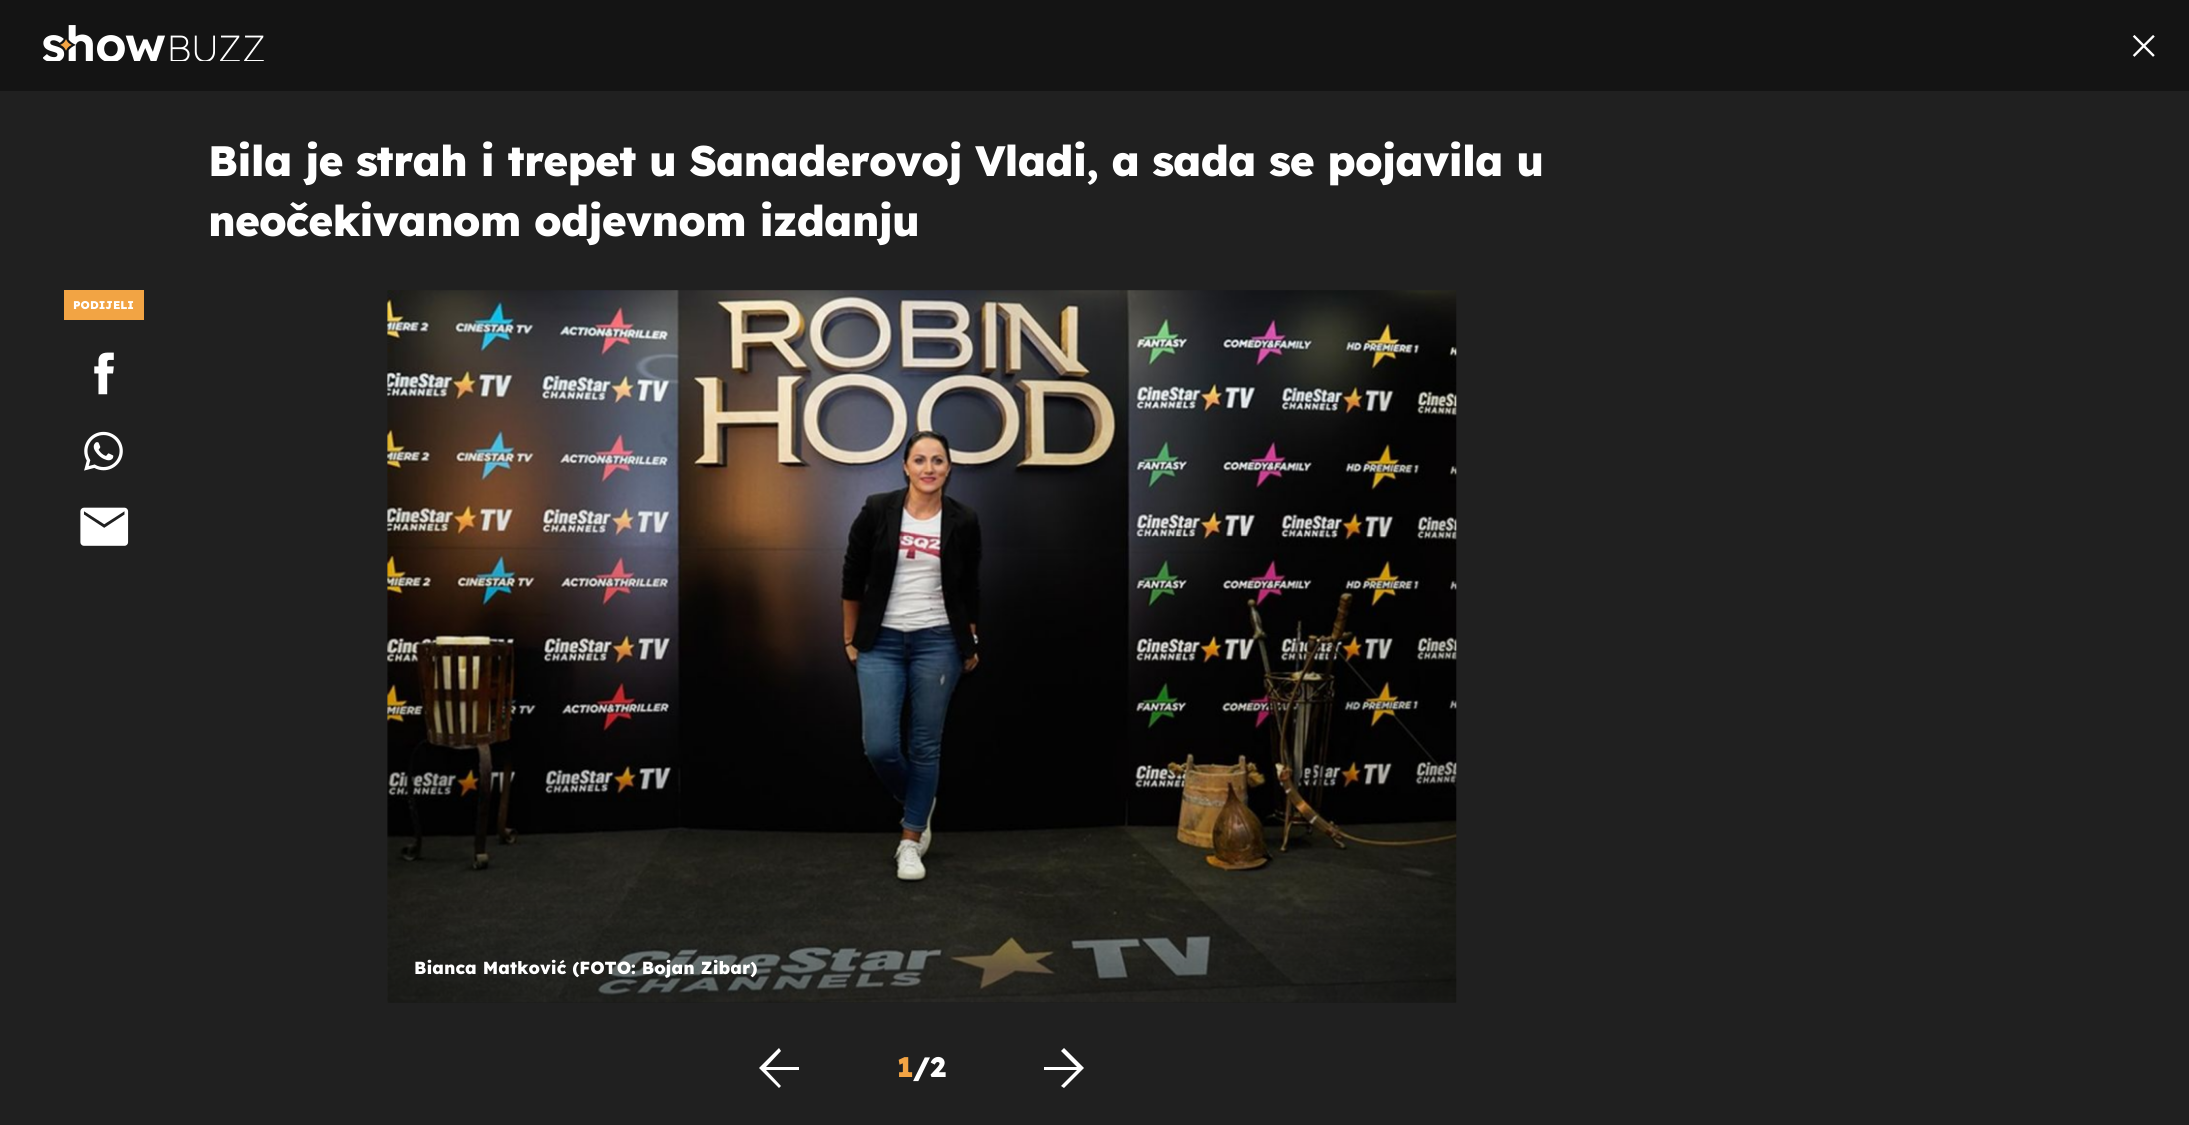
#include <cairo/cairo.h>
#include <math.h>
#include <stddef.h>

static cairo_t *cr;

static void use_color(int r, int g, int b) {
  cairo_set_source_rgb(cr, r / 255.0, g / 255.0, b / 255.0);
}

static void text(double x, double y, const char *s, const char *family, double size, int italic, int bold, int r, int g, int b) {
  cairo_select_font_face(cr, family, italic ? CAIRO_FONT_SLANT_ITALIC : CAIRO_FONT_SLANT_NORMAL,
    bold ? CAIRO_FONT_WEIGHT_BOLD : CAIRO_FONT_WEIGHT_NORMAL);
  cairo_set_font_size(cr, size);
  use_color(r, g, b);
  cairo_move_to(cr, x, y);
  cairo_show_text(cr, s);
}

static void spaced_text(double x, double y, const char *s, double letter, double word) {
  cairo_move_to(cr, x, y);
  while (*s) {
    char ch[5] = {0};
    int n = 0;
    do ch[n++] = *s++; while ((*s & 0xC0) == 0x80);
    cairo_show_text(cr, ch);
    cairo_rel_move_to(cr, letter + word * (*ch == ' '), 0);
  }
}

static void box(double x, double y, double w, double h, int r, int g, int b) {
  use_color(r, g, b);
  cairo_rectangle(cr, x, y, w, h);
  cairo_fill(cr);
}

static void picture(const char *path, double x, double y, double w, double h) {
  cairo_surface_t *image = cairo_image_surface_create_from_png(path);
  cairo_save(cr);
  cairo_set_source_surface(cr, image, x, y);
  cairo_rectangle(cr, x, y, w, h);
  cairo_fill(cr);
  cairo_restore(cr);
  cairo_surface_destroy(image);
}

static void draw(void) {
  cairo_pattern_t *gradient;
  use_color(32, 32, 32);
  cairo_paint(cr);
  box(0, 0, 2189, 91, 20, 20, 20);
  picture("img_01.png", 43, 25, 221, 36);
  picture("img_02.png", 2132, 35, 23, 22);
  box(64, 290, 80, 30, 242, 164, 68);
  picture("img_03.png", 94, 352, 20, 43);
  picture("img_04.png", 84, 431, 39, 40);
  picture("img_05.png", 80, 507, 49, 39);
  picture("img_06.png", 387, 290, 1070, 713);
  gradient = cairo_pattern_create_linear(922, 1003, 922, 880);
  cairo_pattern_add_color_stop_rgba(gradient, 0, 0.078, 0.078, 0.078, 0.4);
  cairo_pattern_add_color_stop_rgba(gradient, 1, 0.078, 0.078, 0.078, 0);
  cairo_set_source(cr, gradient);
  cairo_pattern_destroy(gradient);
  cairo_rectangle(cr, 388, 900, 1068, 103);
  cairo_fill(cr);
  use_color(255, 255, 255);
  cairo_new_path(cr);
  cairo_move_to(cr, 779, 1088);
  cairo_line_to(cr, 781, 1086);
  cairo_line_to(cr, 766, 1070);
  cairo_line_to(cr, 799, 1070);
  cairo_line_to(cr, 799, 1067);
  cairo_line_to(cr, 766, 1067);
  cairo_line_to(cr, 781, 1051);
  cairo_line_to(cr, 779, 1048);
  cairo_line_to(cr, 759, 1068);
  cairo_close_path(cr);
  cairo_fill(cr);
  cairo_new_path(cr);
  cairo_move_to(cr, 1064, 1088);
  cairo_line_to(cr, 1061, 1086);
  cairo_line_to(cr, 1077, 1070);
  cairo_line_to(cr, 1044, 1070);
  cairo_line_to(cr, 1044, 1067);
  cairo_line_to(cr, 1077, 1067);
  cairo_line_to(cr, 1061, 1051);
  cairo_line_to(cr, 1064, 1048);
  cairo_line_to(cr, 1084, 1068);
  cairo_close_path(cr);
  cairo_fill(cr);
  cairo_select_font_face(cr, "Lexend ExtraBold", CAIRO_FONT_SLANT_NORMAL, CAIRO_FONT_WEIGHT_NORMAL);
  cairo_set_font_size(cr, 42.5);
  spaced_text(208, 176, "Bila je strah i trepet u Sanaderovoj Vladi, a sada se pojavila u", -0.85, 0);
  spaced_text(208, 236, "neočekivanom odjevnom izdanju", -0.85, 0);
  text(73, 309, "PODIJELI", "Lexend ExtraBold", 11.25, 0, 0, 255, 255, 255);
  text(414, 974, "Bianca Matković (FOTO: Bojan Zibar)", "Lexend ExtraBold", 17.5, 0, 0, 255, 255, 255);
  text(897, 1077, "1", "Lexend ExtraBold", 28, 0, 0, 242, 164, 68);
  text(913, 1077, "/2", "Lexend ExtraBold", 28, 0, 0, 255, 255, 255);
}

int main(void) {
  cairo_surface_t *surface = cairo_image_surface_create(CAIRO_FORMAT_RGB24, 2189, 1125);
  cr = cairo_create(surface);
  cairo_font_options_t *options = cairo_font_options_create();
  cairo_font_options_set_hint_metrics(options, CAIRO_HINT_METRICS_OFF);
  cairo_font_options_set_hint_style(options, CAIRO_HINT_STYLE_NONE);
  cairo_set_font_options(cr, options);
  cairo_set_miter_limit(cr, 4);
  draw();
  cairo_surface_write_to_png(surface, "out.png");
  cairo_font_options_destroy(options);
  cairo_destroy(cr);
  cairo_surface_destroy(surface);
  return 0;
}
